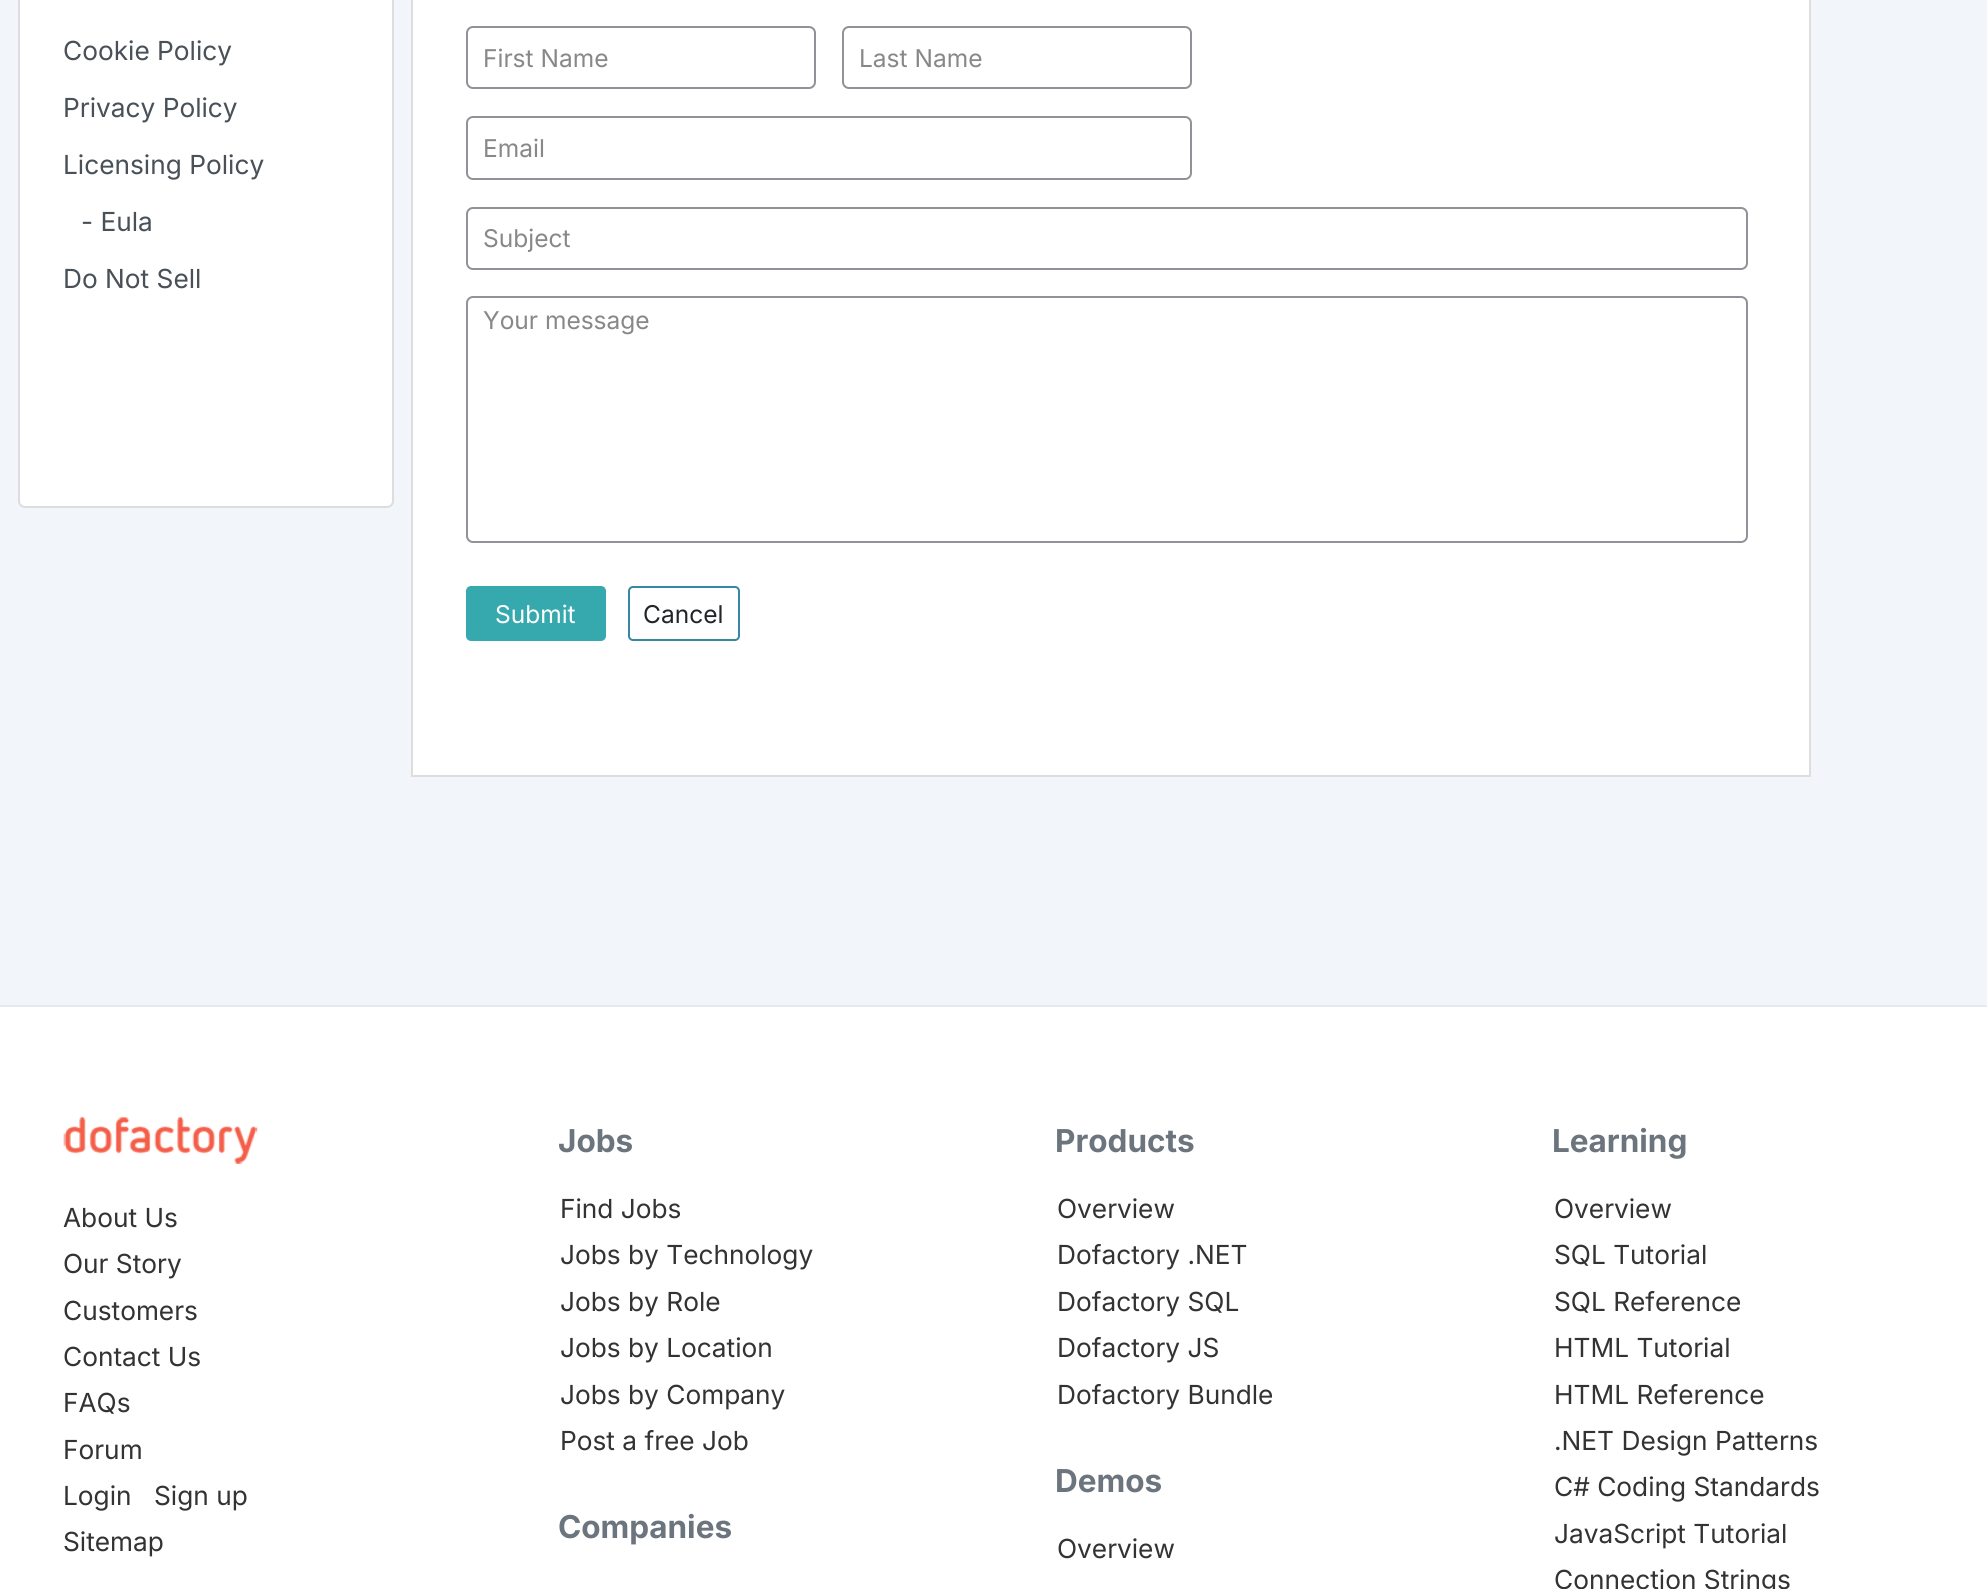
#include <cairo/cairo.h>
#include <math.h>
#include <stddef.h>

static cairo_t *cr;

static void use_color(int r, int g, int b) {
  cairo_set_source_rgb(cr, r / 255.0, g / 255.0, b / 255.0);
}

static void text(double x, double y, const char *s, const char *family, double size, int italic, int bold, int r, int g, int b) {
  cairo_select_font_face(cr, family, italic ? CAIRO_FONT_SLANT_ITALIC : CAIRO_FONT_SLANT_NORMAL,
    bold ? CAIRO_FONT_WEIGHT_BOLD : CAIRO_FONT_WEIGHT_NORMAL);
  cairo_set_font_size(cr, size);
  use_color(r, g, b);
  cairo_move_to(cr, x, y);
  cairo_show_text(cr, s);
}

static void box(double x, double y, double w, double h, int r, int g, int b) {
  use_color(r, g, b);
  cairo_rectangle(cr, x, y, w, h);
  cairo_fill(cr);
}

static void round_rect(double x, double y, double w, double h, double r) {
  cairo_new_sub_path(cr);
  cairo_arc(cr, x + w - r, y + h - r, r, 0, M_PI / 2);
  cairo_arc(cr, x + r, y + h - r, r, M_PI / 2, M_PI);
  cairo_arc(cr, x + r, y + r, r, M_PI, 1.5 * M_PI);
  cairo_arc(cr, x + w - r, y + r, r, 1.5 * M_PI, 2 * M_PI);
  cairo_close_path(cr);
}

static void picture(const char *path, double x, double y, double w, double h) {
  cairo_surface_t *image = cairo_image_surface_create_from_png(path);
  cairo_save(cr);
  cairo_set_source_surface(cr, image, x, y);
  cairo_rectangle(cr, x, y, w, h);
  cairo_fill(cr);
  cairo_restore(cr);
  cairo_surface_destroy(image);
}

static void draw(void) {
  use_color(255, 255, 255);
  cairo_paint(cr);
  box(0, 0, 1987, 1005, 242, 246, 250);
  use_color(255, 255, 255);
  round_rect(19, -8, 374, 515, 6);
  cairo_fill_preserve(cr);
  use_color(221, 221, 221);
  cairo_stroke(cr);
  use_color(255, 255, 255);
  cairo_rectangle(cr, 412, -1, 1398, 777);
  cairo_fill_preserve(cr);
  use_color(221, 221, 221);
  cairo_stroke(cr);
  round_rect(467, 27, 348, 61, 6);
  use_color(145, 145, 151);
  cairo_stroke(cr);
  round_rect(843, 27, 348, 61, 6);
  cairo_stroke(cr);
  round_rect(467, 117, 724, 62, 6);
  cairo_stroke(cr);
  round_rect(467, 208, 1280, 61, 6);
  cairo_stroke(cr);
  round_rect(467, 297, 1280, 245, 6);
  cairo_stroke(cr);
  use_color(54, 169, 175);
  round_rect(467, 587, 138, 53, 4);
  cairo_fill_preserve(cr);
  cairo_stroke(cr);
  round_rect(629, 587, 110, 53, 4);
  use_color(54, 135, 161);
  cairo_stroke(cr);
  box(0, 1005, 1987, 2, 226, 236, 238);
  picture("img_01.png", 63, 1117, 195, 47);
  text(63, 60, "Cookie Policy", "Inter", 26.25, 0, 0, 73, 80, 87);
  text(63, 117, "Privacy Policy", "Inter", 26.25, 0, 0, 73, 80, 87);
  text(63, 174, "Licensing Policy", "Inter", 26.25, 0, 0, 73, 80, 87);
  text(81, 231, "- Eula", "Inter", 26.25, 0, 0, 73, 80, 87);
  text(63, 288, "Do Not Sell", "Inter", 26.25, 0, 0, 73, 80, 87);
  text(483, 67, "First Name", "Inter", 24.5, 0, 0, 136, 136, 136);
  text(859, 67, "Last Name", "Inter", 24.5, 0, 0, 136, 136, 136);
  text(483, 157, "Email", "Inter", 24.5, 0, 0, 136, 136, 136);
  text(483, 247, "Subject", "Inter", 24.5, 0, 0, 136, 136, 136);
  text(483, 329, "Your message", "Inter", 24.5, 0, 0, 136, 136, 136);
  text(495, 623, "Submit", "Inter", 24.5, 0, 0, 255, 255, 255);
  text(643, 623, "Cancel", "Inter", 24.5, 0, 0, 33, 37, 41);
  text(63, 1227, "About Us", "Inter", 26.25, 0, 0, 51, 51, 51);
  text(63, 1273, "Our Story", "Inter", 26.25, 0, 0, 51, 51, 51);
  text(63, 1320, "Customers", "Inter", 26.25, 0, 0, 51, 51, 51);
  text(63, 1366, "Contact Us", "Inter", 26.25, 0, 0, 51, 51, 51);
  text(63, 1412, "FAQs", "Inter", 26.25, 0, 0, 51, 51, 51);
  text(63, 1459, "Forum", "Inter", 26.25, 0, 0, 51, 51, 51);
  text(63, 1505, "Login", "Inter", 26.25, 0, 0, 51, 51, 51);
  text(154, 1505, "Sign up", "Inter", 26.25, 0, 0, 51, 51, 51);
  text(63, 1551, "Sitemap", "Inter", 26.25, 0, 0, 51, 51, 51);
  text(558, 1152, "Jobs", "Inter", 31.5, 0, 1, 108, 117, 125);
  text(560, 1218, "Find Jobs", "Inter", 26.25, 0, 0, 51, 51, 51);
  text(560, 1264, "Jobs by Technology", "Inter", 26.25, 0, 0, 51, 51, 51);
  text(560, 1311, "Jobs by Role", "Inter", 26.25, 0, 0, 51, 51, 51);
  text(560, 1357, "Jobs by Location", "Inter", 26.25, 0, 0, 51, 51, 51);
  text(560, 1404, "Jobs by Company", "Inter", 26.25, 0, 0, 51, 51, 51);
  text(560, 1450, "Post a free Job", "Inter", 26.25, 0, 0, 51, 51, 51);
  text(558, 1538, "Companies", "Inter", 31.5, 0, 1, 108, 117, 125);
  text(1055, 1152, "Products", "Inter", 31.5, 0, 1, 108, 117, 125);
  text(1057, 1218, "Overview", "Inter", 26.25, 0, 0, 51, 51, 51);
  text(1057, 1264, "Dofactory .NET", "Inter", 26.25, 0, 0, 51, 51, 51);
  text(1057, 1311, "Dofactory SQL", "Inter", 26.25, 0, 0, 51, 51, 51);
  text(1057, 1357, "Dofactory JS", "Inter", 26.25, 0, 0, 51, 51, 51);
  text(1057, 1404, "Dofactory Bundle", "Inter", 26.25, 0, 0, 51, 51, 51);
  text(1055, 1492, "Demos", "Inter", 31.5, 0, 1, 108, 117, 125);
  text(1057, 1558, "Overview", "Inter", 26.25, 0, 0, 51, 51, 51);
  text(1552, 1152, "Learning", "Inter", 31.5, 0, 1, 108, 117, 125);
  text(1554, 1218, "Overview", "Inter", 26.25, 0, 0, 51, 51, 51);
  text(1554, 1264, "SQL Tutorial", "Inter", 26.25, 0, 0, 51, 51, 51);
  text(1554, 1311, "SQL Reference", "Inter", 26.25, 0, 0, 51, 51, 51);
  text(1554, 1357, "HTML Tutorial", "Inter", 26.25, 0, 0, 51, 51, 51);
  text(1554, 1404, "HTML Reference", "Inter", 26.25, 0, 0, 51, 51, 51);
  text(1554, 1450, ".NET Design Patterns", "Inter", 26.25, 0, 0, 51, 51, 51);
  text(1554, 1496, "C# Coding Standards", "Inter", 26.25, 0, 0, 51, 51, 51);
  text(1554, 1543, "JavaScript Tutorial", "Inter", 26.25, 0, 0, 51, 51, 51);
  text(1554, 1589, "Connection Strings", "Inter", 26.25, 0, 0, 51, 51, 51);
}

int main(void) {
  cairo_surface_t *surface = cairo_image_surface_create(CAIRO_FORMAT_RGB24, 1987, 1589);
  cr = cairo_create(surface);
  cairo_font_options_t *options = cairo_font_options_create();
  cairo_font_options_set_hint_metrics(options, CAIRO_HINT_METRICS_OFF);
  cairo_font_options_set_hint_style(options, CAIRO_HINT_STYLE_NONE);
  cairo_set_font_options(cr, options);
  cairo_set_miter_limit(cr, 4);
  draw();
  cairo_surface_write_to_png(surface, "out.png");
  cairo_font_options_destroy(options);
  cairo_destroy(cr);
  cairo_surface_destroy(surface);
  return 0;
}
